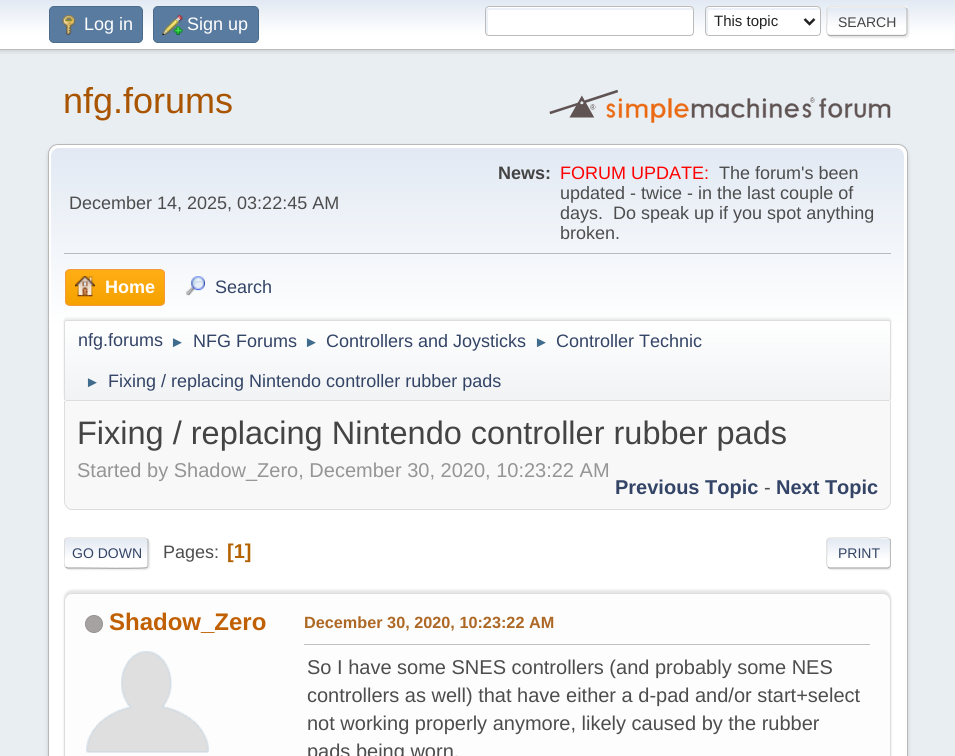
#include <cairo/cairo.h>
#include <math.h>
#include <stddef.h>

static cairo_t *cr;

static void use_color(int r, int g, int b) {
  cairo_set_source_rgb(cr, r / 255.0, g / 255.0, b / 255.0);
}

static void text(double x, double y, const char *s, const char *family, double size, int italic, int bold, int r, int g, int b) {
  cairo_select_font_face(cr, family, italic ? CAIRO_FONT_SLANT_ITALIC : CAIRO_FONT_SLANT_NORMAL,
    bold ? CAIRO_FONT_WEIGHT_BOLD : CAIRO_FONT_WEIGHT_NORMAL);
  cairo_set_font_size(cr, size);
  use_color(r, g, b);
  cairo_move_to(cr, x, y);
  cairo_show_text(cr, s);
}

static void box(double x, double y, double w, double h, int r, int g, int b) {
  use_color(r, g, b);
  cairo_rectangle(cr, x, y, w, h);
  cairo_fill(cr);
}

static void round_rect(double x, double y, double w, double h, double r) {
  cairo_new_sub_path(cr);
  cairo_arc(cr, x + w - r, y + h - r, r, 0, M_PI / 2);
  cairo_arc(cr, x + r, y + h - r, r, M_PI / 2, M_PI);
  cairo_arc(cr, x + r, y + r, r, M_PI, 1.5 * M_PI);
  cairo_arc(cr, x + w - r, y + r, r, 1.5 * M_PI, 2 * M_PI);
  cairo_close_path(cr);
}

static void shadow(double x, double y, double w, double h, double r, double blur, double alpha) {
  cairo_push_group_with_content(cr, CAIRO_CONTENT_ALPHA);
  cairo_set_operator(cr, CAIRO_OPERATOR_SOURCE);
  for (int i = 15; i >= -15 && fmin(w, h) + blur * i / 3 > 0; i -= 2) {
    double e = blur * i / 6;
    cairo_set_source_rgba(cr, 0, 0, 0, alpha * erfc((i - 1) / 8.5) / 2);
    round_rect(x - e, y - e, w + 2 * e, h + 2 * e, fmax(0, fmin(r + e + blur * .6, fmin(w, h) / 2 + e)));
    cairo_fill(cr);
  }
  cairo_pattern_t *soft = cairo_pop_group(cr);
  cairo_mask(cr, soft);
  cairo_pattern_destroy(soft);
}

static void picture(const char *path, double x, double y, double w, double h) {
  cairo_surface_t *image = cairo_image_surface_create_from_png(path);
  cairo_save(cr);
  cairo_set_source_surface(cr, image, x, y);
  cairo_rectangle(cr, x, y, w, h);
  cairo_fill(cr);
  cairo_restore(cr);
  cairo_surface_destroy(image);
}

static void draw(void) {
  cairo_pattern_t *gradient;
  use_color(233, 238, 242);
  cairo_paint(cr);
  use_color(0, 0, 0);
  shadow(0, 1, 955, 50, 0, 2.5, 0.16);
  gradient = cairo_pattern_create_linear(478, 0, 478, 49);
  cairo_pattern_add_color_stop_rgba(gradient, 0, 0.886, 0.914, 0.953, 1);
  cairo_pattern_add_color_stop_rgba(gradient, 0.7, 1, 1, 1, 1);
  cairo_set_source(cr, gradient);
  cairo_pattern_destroy(gradient);
  cairo_rectangle(cr, 0, 0, 955, 49);
  cairo_fill(cr);
  box(0, 49, 955, 1, 187, 187, 187);
  use_color(89, 123, 159);
  round_rect(49.5, 6.5, 93, 36, 4.5);
  cairo_fill_preserve(cr);
  use_color(74, 107, 140);
  cairo_set_line_width(cr, 1);
  cairo_stroke(cr);
  picture("img_01.png", 62, 15, 14, 20);
  use_color(89, 123, 159);
  round_rect(153.5, 6.5, 105, 36, 4.5);
  cairo_fill_preserve(cr);
  use_color(74, 107, 140);
  cairo_stroke(cr);
  picture("img_02.png", 162, 15, 21, 20);
  use_color(255, 255, 255);
  round_rect(485, 6, 209, 30, 4);
  cairo_fill(cr);
  use_color(236, 241, 248);
  cairo_new_path(cr);
  cairo_move_to(cr, 490, 10);
  cairo_line_to(cr, 691, 10);
  cairo_line_to(cr, 693, 10);
  cairo_curve_to(cr, 693, 9, 692, 8, 690, 8);
  cairo_line_to(cr, 488, 8);
  cairo_curve_to(cr, 487, 8, 486, 9, 486, 10);
  cairo_line_to(cr, 486, 32);
  cairo_curve_to(cr, 486, 34, 487, 35, 488, 35);
  cairo_line_to(cr, 488, 12);
  cairo_curve_to(cr, 488, 11, 489, 10, 490, 10);
  cairo_close_path(cr);
  cairo_fill(cr);
  round_rect(485.5, 6.5, 208, 29, 3.5);
  use_color(187, 187, 187);
  cairo_stroke(cr);
  use_color(255, 255, 255);
  round_rect(705, 6, 116, 30, 4);
  cairo_fill(cr);
  use_color(236, 241, 248);
  cairo_new_path(cr);
  cairo_move_to(cr, 710, 10);
  cairo_line_to(cr, 820, 10);
  cairo_curve_to(cr, 820, 9, 819, 8, 818, 8);
  cairo_line_to(cr, 708, 8);
  cairo_curve_to(cr, 707, 8, 706, 9, 706, 10);
  cairo_line_to(cr, 706, 32);
  cairo_curve_to(cr, 706, 34, 707, 35, 708, 35);
  cairo_line_to(cr, 708, 12);
  cairo_curve_to(cr, 708, 11, 709, 10, 710, 10);
  cairo_close_path(cr);
  cairo_fill(cr);
  round_rect(705.5, 6.5, 115, 29, 3.5);
  use_color(187, 187, 187);
  cairo_stroke(cr);
  cairo_new_path(cr);
  cairo_move_to(cr, 804.5, 19);
  cairo_line_to(cr, 809.5, 24);
  cairo_line_to(cr, 814.5, 19);
  use_color(34, 34, 34);
  cairo_set_line_width(cr, 2.5);
  cairo_stroke(cr);
  use_color(221, 221, 221);
  shadow(828, 8, 81, 30, 4, 0.5, 0.57);
  cairo_save(cr);
  round_rect(826, 6, 82, 30, 4);
  cairo_clip(cr);
  gradient = cairo_pattern_create_linear(867, -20, 867, 7.5);
  cairo_pattern_add_color_stop_rgba(gradient, 0, 0.886, 0.914, 0.953, 1);
  cairo_pattern_add_color_stop_rgba(gradient, 0.7, 1, 1, 1, 1);
  cairo_set_source(cr, gradient);
  cairo_pattern_destroy(gradient);
  cairo_rectangle(cr, 826, 6, 82, 2);
  cairo_fill(cr);
  gradient = cairo_pattern_create_linear(867, 7.5, 867, 35);
  cairo_pattern_add_color_stop_rgba(gradient, 0, 0.886, 0.914, 0.953, 1);
  cairo_pattern_add_color_stop_rgba(gradient, 0.7, 1, 1, 1, 1);
  cairo_set_source(cr, gradient);
  cairo_pattern_destroy(gradient);
  cairo_rectangle(cr, 826, 8, 82, 27);
  cairo_fill(cr);
  gradient = cairo_pattern_create_linear(867, 35, 867, 63);
  cairo_pattern_add_color_stop_rgba(gradient, 0, 0.886, 0.914, 0.953, 1);
  cairo_pattern_add_color_stop_rgba(gradient, 0.7, 1, 1, 1, 1);
  cairo_set_source(cr, gradient);
  cairo_pattern_destroy(gradient);
  cairo_rectangle(cr, 826, 35, 82, 1);
  cairo_fill(cr);
  cairo_restore(cr);
  cairo_new_path(cr);
  cairo_move_to(cr, 906, 8);
  cairo_curve_to(cr, 906.5, 8.5, 907, 9, 907, 10);
  cairo_line_to(cr, 907, 32.5);
  cairo_curve_to(cr, 907, 33.5, 906.5, 34, 906, 34.5);
  use_color(187, 187, 187);
  cairo_set_line_width(cr, 1.2);
  cairo_stroke(cr);
  cairo_new_path(cr);
  cairo_move_to(cr, 906, 34.5);
  cairo_line_to(cr, 904, 35.5);
  cairo_line_to(cr, 829.5, 35.5);
  cairo_line_to(cr, 828, 34.5);
  use_color(170, 170, 170);
  cairo_stroke(cr);
  cairo_new_path(cr);
  cairo_move_to(cr, 828, 34.5);
  cairo_curve_to(cr, 825.5, 32.5, 827, 24, 827, 21);
  cairo_curve_to(cr, 827, 4, 824.5, 7, 842.5, 7);
  cairo_line_to(cr, 904, 7);
  cairo_line_to(cr, 906, 8);
  use_color(221, 221, 221);
  cairo_stroke(cr);
  picture("img_03.png", 549, 89, 342, 34);
  use_color(0, 0, 0);
  shadow(48, 146, 860, 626, 10, 2, 0.14);
  use_color(255, 255, 255);
  round_rect(48.5, 144.5, 859, 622, 9.5);
  cairo_fill_preserve(cr);
  use_color(184, 184, 184);
  cairo_set_line_width(cr, 1);
  cairo_stroke(cr);
  gradient = cairo_pattern_create_linear(478, 147, 478, 404);
  cairo_pattern_add_color_stop_rgba(gradient, 0, 0.886, 0.914, 0.953, 1);
  cairo_pattern_add_color_stop_rgba(gradient, 0.7, 1, 1, 1, 1);
  cairo_set_source(cr, gradient);
  cairo_pattern_destroy(gradient);
  cairo_new_path(cr);
  cairo_move_to(cr, 59, 148);
  cairo_line_to(cr, 896, 148);
  cairo_curve_to(cr, 900.5, 148, 904, 151.5, 904, 156);
  cairo_line_to(cr, 904, 404);
  cairo_line_to(cr, 51, 404);
  cairo_line_to(cr, 51, 156);
  cairo_curve_to(cr, 51, 151.5, 54.5, 148, 59, 148);
  cairo_close_path(cr);
  cairo_fill(cr);
  box(64, 253, 827, 1, 187, 187, 187);
  cairo_save(cr);
  round_rect(65, 269, 100, 37, 5);
  cairo_clip(cr);
  gradient = cairo_pattern_create_linear(115, 270, 115, 305);
  cairo_pattern_add_color_stop_rgba(gradient, 0, 1, 0.682, 0.078, 1);
  cairo_pattern_add_color_stop_rgba(gradient, 1, 0.961, 0.631, 0, 1);
  cairo_set_source(cr, gradient);
  cairo_pattern_destroy(gradient);
  cairo_rectangle(cr, 65, 270, 100, 35);
  cairo_fill(cr);
  cairo_restore(cr);
  round_rect(65.5, 269.5, 99, 36, 4.5);
  use_color(244, 154, 58);
  cairo_stroke(cr);
  picture("img_04.png", 75, 276, 20, 21);
  picture("img_05.png", 186, 276, 19, 20);
  use_color(0, 0, 0);
  shadow(64, 318, 827, 81, 2.5, 1, 0.08);
  cairo_save(cr);
  round_rect(64, 320, 827, 81, 2.5);
  cairo_clip(cr);
  gradient = cairo_pattern_create_linear(478, 321, 478, 400);
  cairo_pattern_add_color_stop_rgba(gradient, 0, 1, 1, 1, 1);
  cairo_pattern_add_color_stop_rgba(gradient, 0.95, 0.945, 0.953, 0.961, 1);
  cairo_set_source(cr, gradient);
  cairo_pattern_destroy(gradient);
  cairo_rectangle(cr, 64, 321, 827, 79);
  cairo_fill(cr);
  cairo_restore(cr);
  round_rect(64.5, 320.5, 826, 80, 2);
  use_color(221, 221, 221);
  cairo_stroke(cr);
  use_color(248, 248, 248);
  cairo_new_path(cr);
  cairo_move_to(cr, 64, 401);
  cairo_line_to(cr, 891, 401);
  cairo_line_to(cr, 891, 501);
  cairo_curve_to(cr, 891, 506, 887, 510, 882, 510);
  cairo_line_to(cr, 73, 510);
  cairo_curve_to(cr, 68, 510, 64, 506, 64, 501);
  cairo_close_path(cr);
  cairo_fill(cr);
  use_color(221, 221, 221);
  cairo_set_fill_rule(cr, CAIRO_FILL_RULE_EVEN_ODD);
  cairo_new_path(cr);
  cairo_move_to(cr, 64, 401);
  cairo_line_to(cr, 891, 401);
  cairo_line_to(cr, 891, 501);
  cairo_curve_to(cr, 891, 506, 887, 510, 882, 510);
  cairo_line_to(cr, 72, 510);
  cairo_curve_to(cr, 68, 510, 64, 506, 64, 501);
  cairo_close_path(cr);
  cairo_move_to(cr, 65, 401);
  cairo_line_to(cr, 890, 401);
  cairo_line_to(cr, 890, 501);
  cairo_curve_to(cr, 890, 505, 887, 509, 882, 509);
  cairo_line_to(cr, 72, 509);
  cairo_curve_to(cr, 68, 509, 65, 505, 65, 501);
  cairo_close_path(cr);
  cairo_fill(cr);
  use_color(221, 221, 221);
  shadow(65, 539, 85, 31, 4, 0.5, 0.57);
  use_color(255, 255, 255);
  round_rect(64, 538, 85, 31, 4);
  cairo_fill(cr);
  cairo_save(cr);
  cairo_set_fill_rule(cr, CAIRO_FILL_RULE_WINDING);
  round_rect(64, 538, 85, 31, 4);
  cairo_clip(cr);
  gradient = cairo_pattern_create_linear(106, 539, 106, 568);
  cairo_pattern_add_color_stop_rgba(gradient, 0, 0.886, 0.914, 0.953, 1);
  cairo_pattern_add_color_stop_rgba(gradient, 0.7, 1, 1, 1, 1);
  cairo_set_source(cr, gradient);
  cairo_pattern_destroy(gradient);
  cairo_rectangle(cr, 64, 539, 85, 29);
  cairo_fill(cr);
  gradient = cairo_pattern_create_linear(106, 568, 106, 596);
  cairo_pattern_add_color_stop_rgba(gradient, 0, 0.886, 0.914, 0.953, 1);
  cairo_pattern_add_color_stop_rgba(gradient, 0.7, 1, 1, 1, 1);
  cairo_set_source(cr, gradient);
  cairo_pattern_destroy(gradient);
  cairo_rectangle(cr, 64, 568, 85, 1);
  cairo_fill(cr);
  cairo_restore(cr);
  cairo_new_path(cr);
  cairo_move_to(cr, 147, 539);
  cairo_curve_to(cr, 148, 539.5, 148, 540.5, 148, 541);
  cairo_line_to(cr, 148, 565);
  cairo_curve_to(cr, 148, 566, 148, 566.5, 147, 567);
  use_color(187, 187, 187);
  cairo_set_line_width(cr, 1.2);
  cairo_stroke(cr);
  cairo_new_path(cr);
  cairo_move_to(cr, 147, 567);
  cairo_line_to(cr, 147, 567.5);
  cairo_curve_to(cr, 145, 569, 88, 568, 80.5, 568);
  cairo_line_to(cr, 67.5, 568);
  cairo_line_to(cr, 65.5, 567);
  use_color(170, 170, 170);
  cairo_stroke(cr);
  cairo_save(cr);
  cairo_set_fill_rule(cr, CAIRO_FILL_RULE_WINDING);
  cairo_rectangle(cr, 64, 529, 827, 49);
  cairo_clip(cr);
  cairo_new_path(cr);
  cairo_move_to(cr, 65.5, 567);
  cairo_curve_to(cr, 63, 565, 64.5, 556, 64.5, 553);
  cairo_curve_to(cr, 64.5, 535.5, 61.5, 538, 80.5, 538);
  cairo_line_to(cr, 145, 538);
  cairo_line_to(cr, 147, 539);
  use_color(221, 221, 221);
  cairo_stroke(cr);
  cairo_restore(cr);
  cairo_save(cr);
  cairo_set_fill_rule(cr, CAIRO_FILL_RULE_WINDING);
  cairo_rectangle(cr, 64, 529, 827, 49);
  cairo_clip(cr);
  use_color(221, 221, 221);
  shadow(828, 539, 65, 31, 4, 0.5, 0.57);
  cairo_restore(cr);
  use_color(255, 255, 255);
  round_rect(826, 538, 65, 31, 4);
  cairo_fill(cr);
  cairo_save(cr);
  cairo_set_fill_rule(cr, CAIRO_FILL_RULE_WINDING);
  round_rect(826, 538, 65, 31, 4);
  cairo_clip(cr);
  gradient = cairo_pattern_create_linear(859, 539, 859, 568);
  cairo_pattern_add_color_stop_rgba(gradient, 0, 0.886, 0.914, 0.953, 1);
  cairo_pattern_add_color_stop_rgba(gradient, 0.7, 1, 1, 1, 1);
  cairo_set_source(cr, gradient);
  cairo_pattern_destroy(gradient);
  cairo_rectangle(cr, 826, 539, 65, 29);
  cairo_fill(cr);
  gradient = cairo_pattern_create_linear(859, 568, 859, 596);
  cairo_pattern_add_color_stop_rgba(gradient, 0, 0.886, 0.914, 0.953, 1);
  cairo_pattern_add_color_stop_rgba(gradient, 0.7, 1, 1, 1, 1);
  cairo_set_source(cr, gradient);
  cairo_pattern_destroy(gradient);
  cairo_rectangle(cr, 826, 568, 65, 1);
  cairo_fill(cr);
  cairo_restore(cr);
  cairo_save(cr);
  cairo_set_fill_rule(cr, CAIRO_FILL_RULE_WINDING);
  cairo_rectangle(cr, 64, 529, 827, 49);
  cairo_clip(cr);
  cairo_new_path(cr);
  cairo_move_to(cr, 889.5, 539);
  cairo_curve_to(cr, 890.5, 539.5, 890.5, 540.5, 890.5, 541);
  cairo_line_to(cr, 890.5, 565);
  cairo_curve_to(cr, 890.5, 566, 890.5, 566.5, 889.5, 567);
  use_color(187, 187, 187);
  cairo_stroke(cr);
  cairo_restore(cr);
  cairo_new_path(cr);
  cairo_move_to(cr, 889.5, 567);
  cairo_line_to(cr, 888, 568);
  cairo_line_to(cr, 829.5, 568);
  cairo_line_to(cr, 828, 567);
  use_color(170, 170, 170);
  cairo_stroke(cr);
  cairo_new_path(cr);
  cairo_move_to(cr, 828, 567);
  cairo_curve_to(cr, 825.5, 565, 827, 556, 827, 553);
  cairo_curve_to(cr, 827, 537, 824, 538, 839.5, 538);
  cairo_line_to(cr, 878, 538);
  cairo_curve_to(cr, 878.5, 538, 887.5, 536.5, 889.5, 539);
  use_color(221, 221, 221);
  cairo_stroke(cr);
  use_color(0, 0, 0);
  shadow(64, 590, 827, 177, 8, 1, 0.1);
  use_color(253, 253, 253);
  round_rect(64.5, 593.5, 826, 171, 7.5);
  cairo_fill_preserve(cr);
  use_color(221, 221, 221);
  cairo_set_line_width(cr, 1);
  cairo_stroke(cr);
  use_color(167, 162, 162);
  cairo_arc(cr, 94, 624, 8.5, 0, 2 * M_PI);
  cairo_fill_preserve(cr);
  use_color(150, 146, 146);
  cairo_stroke(cr);
  picture("img_06.png", 86, 651, 123, 102);
  box(304, 644, 566, 1, 191, 191, 191);
  text(84, 30, "Log in", "Liberation Sans", 18, 0, 0, 255, 255, 255);
  text(187, 30, "Sign up", "Liberation Sans", 18, 0, 0, 255, 255, 255);
  text(714, 26, "This topic", "Liberation Sans", 15, 0, 0, 34, 34, 34);
  text(838, 27, "SEARCH", "Liberation Sans", 14, 0, 0, 68, 68, 68);
  text(63, 113, "nfg.forums", "Liberation Sans", 36, 0, 0, 168, 84, 0);
  text(69, 209, "December 14, 2025, 03:22:45 AM", "Liberation Sans", 18, 0, 0, 77, 77, 77);
  text(498, 179, "News:", "Liberation Sans", 18, 0, 1, 68, 68, 68);
  text(560, 179, "FORUM UPDATE:", "Liberation Sans", 18, 0, 0, 255, 0, 0);
  text(719, 179, "The forum's been", "Liberation Sans", 18, 0, 0, 77, 77, 77);
  text(560, 199, "updated - twice - in the last couple of", "Liberation Sans", 18, 0, 0, 77, 77, 77);
  text(560, 219, "days.  Do speak up if you spot anything", "Liberation Sans", 18, 0, 0, 77, 77, 77);
  text(560, 239, "broken.", "Liberation Sans", 18, 0, 0, 77, 77, 77);
  text(105, 293, "Home", "Liberation Sans", 18, 0, 1, 255, 255, 255);
  text(215, 293, "Search", "Liberation Sans", 18, 0, 0, 51, 68, 102);
  text(78, 346, "nfg.forums", "Liberation Sans", 18, 0, 0, 51, 68, 102);
  text(170, 347, "►", "Liberation Sans", 15, 0, 0, 63, 107, 140);
  text(193, 347, "NFG Forums", "Liberation Sans", 18, 0, 0, 51, 68, 102);
  text(304, 347, "►", "Liberation Sans", 15, 0, 0, 63, 107, 140);
  text(326, 347, "Controllers and Joysticks", "Liberation Sans", 18, 0, 0, 51, 68, 102);
  text(534, 347, "►", "Liberation Sans", 15, 0, 0, 63, 107, 140);
  text(556, 347, "Controller Technic", "Liberation Sans", 18, 0, 0, 51, 68, 102);
  text(85, 387, "►", "Liberation Sans", 15, 0, 0, 63, 107, 140);
  text(108, 387, "Fixing / replacing Nintendo controller rubber pads", "Liberation Sans", 18, 0, 0, 51, 68, 102);
  text(77, 444, "Fixing / replacing Nintendo controller rubber pads", "Liberation Sans", 32.5, 0, 0, 68, 68, 68);
  text(77, 477, "Started by Shadow_Zero, December 30, 2020, 10:23:22 AM", "Liberation Sans", 20, 0, 0, 149, 149, 149);
  text(615, 494, "Previous Topic", "Liberation Sans", 20, 0, 1, 51, 68, 102);
  text(764, 494, "-", "Liberation Sans", 20, 0, 0, 77, 77, 77);
  text(776, 494, "Next Topic", "Liberation Sans", 20, 0, 1, 51, 68, 102);
  text(72, 558, "GO DOWN", "Liberation Sans", 14, 0, 0, 51, 68, 102);
  text(163, 558, "Pages:", "Liberation Sans", 18, 0, 0, 77, 77, 77);
  text(227, 558, "[1]", "Liberation Sans", 20, 0, 1, 180, 97, 0);
  text(838, 558, "PRINT", "Liberation Sans", 14, 0, 0, 51, 68, 102);
  text(109, 630, "Shadow_Zero", "Liberation Sans", 24, 0, 1, 192, 96, 2);
  text(304, 628, "December 30, 2020, 10:23:22 AM", "Liberation Sans", 16.25, 0, 1, 173, 104, 37);
  text(307, 674, "So I have some SNES controllers (and probably some NES", "Liberation Sans", 20, 0, 0, 77, 77, 77);
  text(307, 702, "controllers as well) that have either a d-pad and/or start+select", "Liberation Sans", 20, 0, 0, 77, 77, 77);
  text(307, 730, "not working properly anymore, likely caused by the rubber", "Liberation Sans", 20, 0, 0, 77, 77, 77);
  text(307, 758, "pads being worn.", "Liberation Sans", 20, 0, 0, 77, 77, 77);
}

int main(void) {
  cairo_surface_t *surface = cairo_image_surface_create(CAIRO_FORMAT_RGB24, 955, 756);
  cr = cairo_create(surface);
  cairo_font_options_t *options = cairo_font_options_create();
  cairo_font_options_set_hint_metrics(options, CAIRO_HINT_METRICS_OFF);
  cairo_font_options_set_hint_style(options, CAIRO_HINT_STYLE_NONE);
  cairo_set_font_options(cr, options);
  cairo_set_miter_limit(cr, 4);
  draw();
  cairo_surface_write_to_png(surface, "out.png");
  cairo_font_options_destroy(options);
  cairo_destroy(cr);
  cairo_surface_destroy(surface);
  return 0;
}
